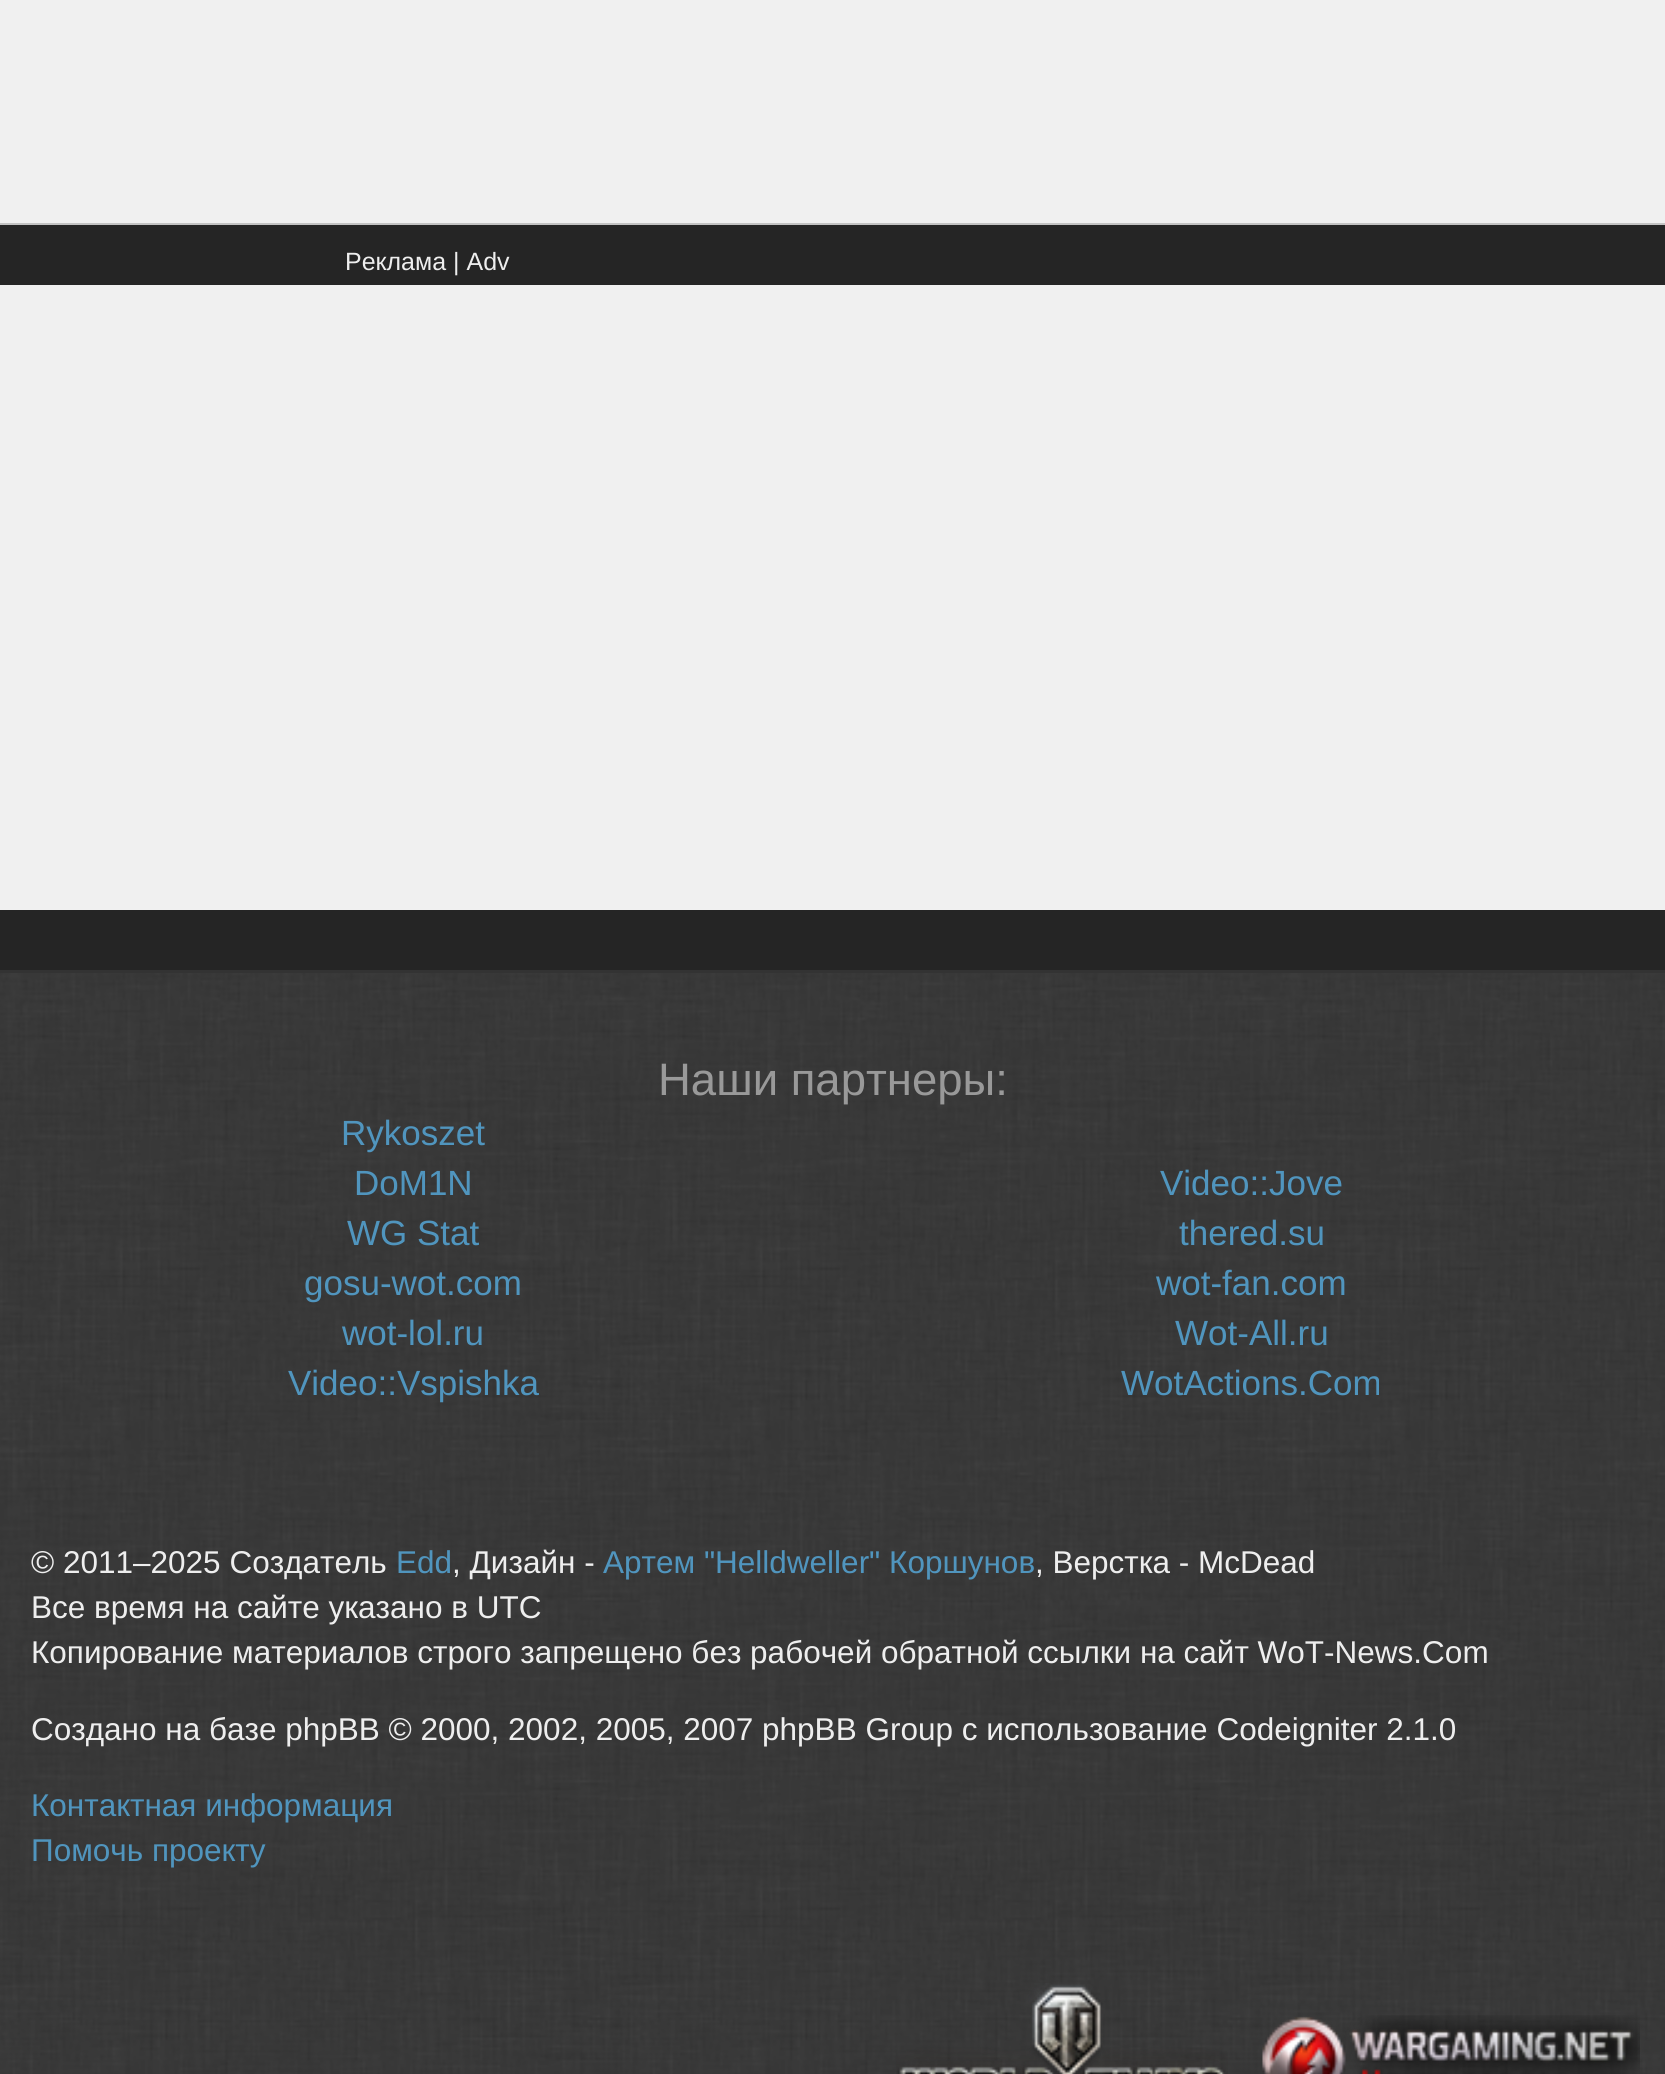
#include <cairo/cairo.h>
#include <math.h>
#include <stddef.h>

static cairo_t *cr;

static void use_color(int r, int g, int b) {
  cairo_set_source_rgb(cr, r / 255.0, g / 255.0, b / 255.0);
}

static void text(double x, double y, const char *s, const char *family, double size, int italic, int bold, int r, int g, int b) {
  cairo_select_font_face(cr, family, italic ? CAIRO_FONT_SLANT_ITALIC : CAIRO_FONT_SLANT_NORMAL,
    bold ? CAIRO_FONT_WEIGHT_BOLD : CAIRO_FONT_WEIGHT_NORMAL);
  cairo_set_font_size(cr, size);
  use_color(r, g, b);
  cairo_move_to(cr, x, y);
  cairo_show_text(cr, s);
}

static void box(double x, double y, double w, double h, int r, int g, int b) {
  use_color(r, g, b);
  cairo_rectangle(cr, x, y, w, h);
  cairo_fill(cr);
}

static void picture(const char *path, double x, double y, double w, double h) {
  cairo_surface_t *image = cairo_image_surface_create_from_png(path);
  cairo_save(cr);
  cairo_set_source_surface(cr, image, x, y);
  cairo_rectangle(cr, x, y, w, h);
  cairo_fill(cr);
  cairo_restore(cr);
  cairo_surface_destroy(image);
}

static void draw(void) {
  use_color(255, 255, 255);
  cairo_paint(cr);
  picture("img_01.png", 0, 973, 1665, 1101);
  box(0, 0, 1665, 223, 240, 240, 240);
  box(0, 970, 1665, 3, 51, 51, 51);
  box(0, 223, 1665, 2, 195, 195, 195);
  box(0, 225, 1665, 745, 37, 37, 37);
  box(0, 285, 1665, 625, 240, 240, 240);
  picture("img_02.png", 896, 1983, 332, 91);
  picture("img_03.png", 1262, 2015, 378, 59);
  text(345, 270, "Реклама | Adv", "Liberation Sans", 25, 0, 0, 238, 238, 238);
  text(658, 1095, "Наши партнеры:", "Liberation Sans", 45.5, 0, 0, 153, 153, 153);
  text(341, 1145, "Rykoszet", "Liberation Sans", 35, 0, 0, 80, 149, 190);
  text(354, 1195, "DoM1N", "Liberation Sans", 35, 0, 0, 80, 149, 190);
  text(347, 1245, "WG Stat", "Liberation Sans", 35, 0, 0, 80, 149, 190);
  text(304, 1295, "gosu-wot.com", "Liberation Sans", 35, 0, 0, 80, 149, 190);
  text(342, 1345, "wot-lol.ru", "Liberation Sans", 35, 0, 0, 80, 149, 190);
  text(288, 1395, "Video::Vspishka", "Liberation Sans", 35, 0, 0, 80, 149, 190);
  text(1160, 1195, "Video::Jove", "Liberation Sans", 35, 0, 0, 80, 149, 190);
  text(1179, 1245, "thered.su", "Liberation Sans", 35, 0, 0, 80, 149, 190);
  text(1156, 1295, "wot-fan.com", "Liberation Sans", 35, 0, 0, 80, 149, 190);
  text(1175, 1345, "Wot-All.ru", "Liberation Sans", 35, 0, 0, 80, 149, 190);
  text(1121, 1395, "WotActions.Com", "Liberation Sans", 35, 0, 0, 80, 149, 190);
  text(31, 1573, "© 2011–2025 Создатель", "Liberation Sans", 31.5, 0, 0, 238, 238, 238);
  text(396, 1573, "Edd", "Liberation Sans", 31.5, 0, 0, 80, 149, 190);
  text(452, 1573, ", Дизайн -", "Liberation Sans", 31.5, 0, 0, 238, 238, 238);
  text(603, 1573, "Артем \"Helldweller\" Коршунов", "Liberation Sans", 31.5, 0, 0, 80, 149, 190);
  text(1035, 1573, ", Верстка - McDead", "Liberation Sans", 31.5, 0, 0, 238, 238, 238);
  text(31, 1618, "Все время на сайте указано в UTC", "Liberation Sans", 31.5, 0, 0, 238, 238, 238);
  text(31, 1663, "Копирование материалов строго запрещено без рабочей обратной ссылки на сайт WoT-News.Com", "Liberation Sans", 31.5, 0, 0, 238, 238, 238);
  text(31, 1740, "Создано на базе phpBB © 2000, 2002, 2005, 2007 phpBB Group с использование Codeigniter 2.1.0", "Liberation Sans", 31.5, 0, 0, 238, 238, 238);
  text(31, 1816, "Контактная информация", "Liberation Sans", 31.5, 0, 0, 80, 149, 190);
  text(31, 1861, "Помочь проекту", "Liberation Sans", 31.5, 0, 0, 80, 149, 190);
}

int main(void) {
  cairo_surface_t *surface = cairo_image_surface_create(CAIRO_FORMAT_RGB24, 1665, 2074);
  cr = cairo_create(surface);
  cairo_font_options_t *options = cairo_font_options_create();
  cairo_font_options_set_hint_metrics(options, CAIRO_HINT_METRICS_OFF);
  cairo_font_options_set_hint_style(options, CAIRO_HINT_STYLE_NONE);
  cairo_set_font_options(cr, options);
  cairo_set_miter_limit(cr, 4);
  draw();
  cairo_surface_write_to_png(surface, "out.png");
  cairo_font_options_destroy(options);
  cairo_destroy(cr);
  cairo_surface_destroy(surface);
  return 0;
}
